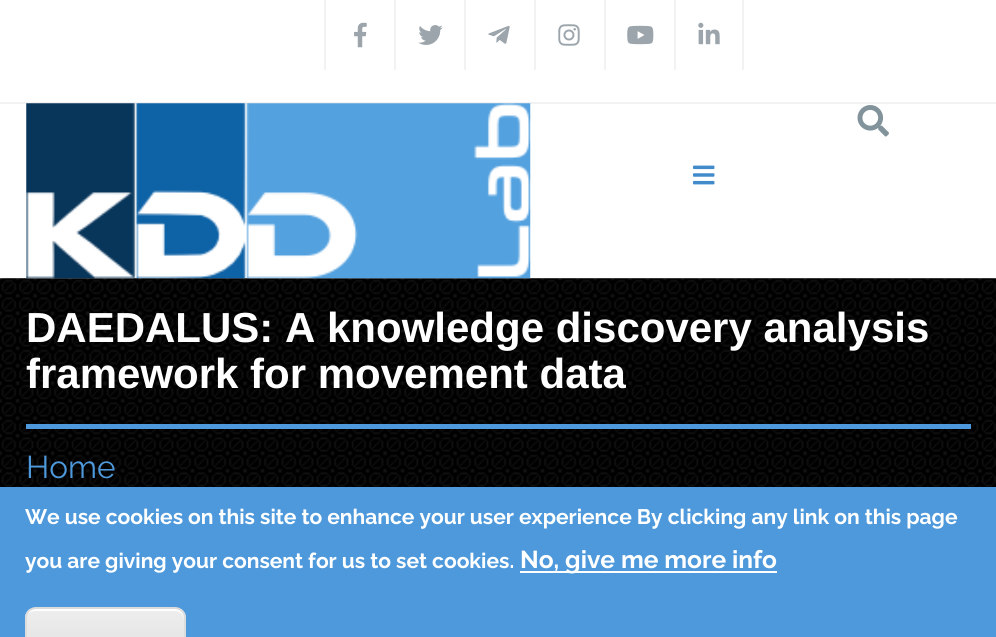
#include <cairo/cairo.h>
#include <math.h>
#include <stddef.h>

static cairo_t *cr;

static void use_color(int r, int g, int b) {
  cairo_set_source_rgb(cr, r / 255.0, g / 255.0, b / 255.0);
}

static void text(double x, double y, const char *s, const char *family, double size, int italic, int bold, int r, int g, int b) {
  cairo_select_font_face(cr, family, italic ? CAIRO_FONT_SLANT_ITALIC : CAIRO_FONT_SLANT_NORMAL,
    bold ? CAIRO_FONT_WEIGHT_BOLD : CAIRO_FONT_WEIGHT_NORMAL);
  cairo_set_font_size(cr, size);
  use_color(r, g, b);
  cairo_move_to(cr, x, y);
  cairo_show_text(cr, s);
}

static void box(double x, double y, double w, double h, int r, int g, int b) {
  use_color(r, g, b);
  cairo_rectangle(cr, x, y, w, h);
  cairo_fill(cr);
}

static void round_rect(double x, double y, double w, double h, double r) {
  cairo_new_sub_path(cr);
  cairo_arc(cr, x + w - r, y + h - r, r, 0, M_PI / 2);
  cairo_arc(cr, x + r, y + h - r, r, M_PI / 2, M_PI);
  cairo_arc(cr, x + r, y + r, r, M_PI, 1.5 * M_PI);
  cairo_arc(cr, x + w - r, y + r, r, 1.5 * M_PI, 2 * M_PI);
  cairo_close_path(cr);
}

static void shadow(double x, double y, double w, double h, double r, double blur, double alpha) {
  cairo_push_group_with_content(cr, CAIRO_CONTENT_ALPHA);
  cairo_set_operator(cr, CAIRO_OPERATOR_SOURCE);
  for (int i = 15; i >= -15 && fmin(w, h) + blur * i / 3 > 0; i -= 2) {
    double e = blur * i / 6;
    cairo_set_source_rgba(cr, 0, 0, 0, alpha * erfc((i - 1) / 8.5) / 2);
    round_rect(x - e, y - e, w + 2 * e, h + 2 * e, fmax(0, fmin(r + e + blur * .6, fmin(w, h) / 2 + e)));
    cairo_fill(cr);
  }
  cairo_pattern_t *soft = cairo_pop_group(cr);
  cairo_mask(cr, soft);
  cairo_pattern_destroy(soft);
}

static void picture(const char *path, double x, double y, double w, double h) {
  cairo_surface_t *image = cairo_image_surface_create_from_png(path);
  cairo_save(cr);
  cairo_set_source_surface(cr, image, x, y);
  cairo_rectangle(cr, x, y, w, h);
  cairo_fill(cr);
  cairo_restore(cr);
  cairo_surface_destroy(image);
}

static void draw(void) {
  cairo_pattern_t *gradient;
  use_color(255, 255, 255);
  cairo_paint(cr);
  box(0, 102, 996, 2, 242, 242, 242);
  box(324, 0, 2, 70, 242, 242, 242);
  picture("img_01.png", 354, 22, 13, 26);
  box(394, 0, 2, 70, 242, 242, 242);
  picture("img_02.png", 418, 25, 25, 20);
  box(464, 0, 2, 70, 242, 242, 242);
  picture("img_03.png", 488, 25, 22, 19);
  box(534, 0, 2, 70, 242, 242, 242);
  picture("img_04.png", 558, 24, 22, 22);
  box(604, 0, 2, 70, 242, 242, 242);
  picture("img_05.png", 627, 25, 27, 20);
  box(742, 0, 2, 70, 242, 242, 242);
  box(674, 0, 2, 70, 242, 242, 242);
  picture("img_06.png", 698, 22, 22, 23);
  cairo_save(cr);
  cairo_rectangle(cr, 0, 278, 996, 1);
  cairo_clip(cr);
  use_color(128, 128, 128);
  shadow(5, 112, 987, 165, 0, 3.5, 1);
  cairo_restore(cr);
  picture("img_10.png", 0, 278, 996, 209);
  picture("img_07.png", 26, 103, 505, 176);
  picture("img_08.png", 857, 105, 32, 32);
  picture("img_09.png", 693, 165, 22, 20);
  box(26, 424, 945, 5, 78, 153, 220);
  box(0, 487, 996, 150, 78, 153, 220);
  box(520, 571, 257, 2, 255, 255, 255);
  cairo_save(cr);
  round_rect(25, 607, 161, 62, 11);
  cairo_clip(cr);
  gradient = cairo_pattern_create_linear(105, 609, 105, 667);
  cairo_pattern_add_color_stop_rgba(gradient, 0.05, 0.929, 0.929, 0.929, 1);
  cairo_pattern_add_color_stop_rgba(gradient, 1, 0.875, 0.875, 0.875, 1);
  cairo_set_source(cr, gradient);
  cairo_pattern_destroy(gradient);
  cairo_rectangle(cr, 25, 609, 161, 28);
  cairo_fill(cr);
  cairo_restore(cr);
  cairo_new_path(cr);
  cairo_move_to(cr, 35, 611);
  cairo_line_to(cr, 175, 611);
  cairo_curve_to(cr, 180, 611, 184, 615, 184, 620);
  cairo_line_to(cr, 184, 618);
  cairo_curve_to(cr, 184, 613, 180, 609, 175, 609);
  cairo_line_to(cr, 35, 609);
  cairo_curve_to(cr, 30, 609, 26, 613, 26, 618);
  cairo_line_to(cr, 26, 620);
  cairo_curve_to(cr, 26, 615, 30, 611, 35, 611);
  cairo_close_path(cr);
  cairo_fill(cr);
  round_rect(26, 608, 159, 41, 10);
  use_color(220, 220, 220);
  cairo_stroke(cr);
  text(26, 342, "DAEDALUS: A knowledge discovery analysis", "Liberation Sans", 42, 0, 1, 255, 255, 255);
  text(26, 388, "framework for movement data", "Liberation Sans", 42, 0, 1, 255, 255, 255);
  text(26, 478, "Home", "Raleway", 31.5, 0, 0, 78, 153, 220);
  text(25, 524, "We use cookies on this site to enhance your user experience By clicking any link on this page", "Raleway", 21, 0, 1, 255, 255, 255);
  text(25, 568, "you are giving your consent for us to set cookies.", "Raleway", 21, 0, 1, 255, 255, 255);
  text(520, 568, "No, give me more info", "Raleway", 24.5, 0, 1, 255, 255, 255);
}

int main(void) {
  cairo_surface_t *surface = cairo_image_surface_create(CAIRO_FORMAT_RGB24, 996, 637);
  cr = cairo_create(surface);
  cairo_font_options_t *options = cairo_font_options_create();
  cairo_font_options_set_hint_metrics(options, CAIRO_HINT_METRICS_OFF);
  cairo_font_options_set_hint_style(options, CAIRO_HINT_STYLE_NONE);
  cairo_set_font_options(cr, options);
  cairo_set_miter_limit(cr, 4);
  draw();
  cairo_surface_write_to_png(surface, "out.png");
  cairo_font_options_destroy(options);
  cairo_destroy(cr);
  cairo_surface_destroy(surface);
  return 0;
}
